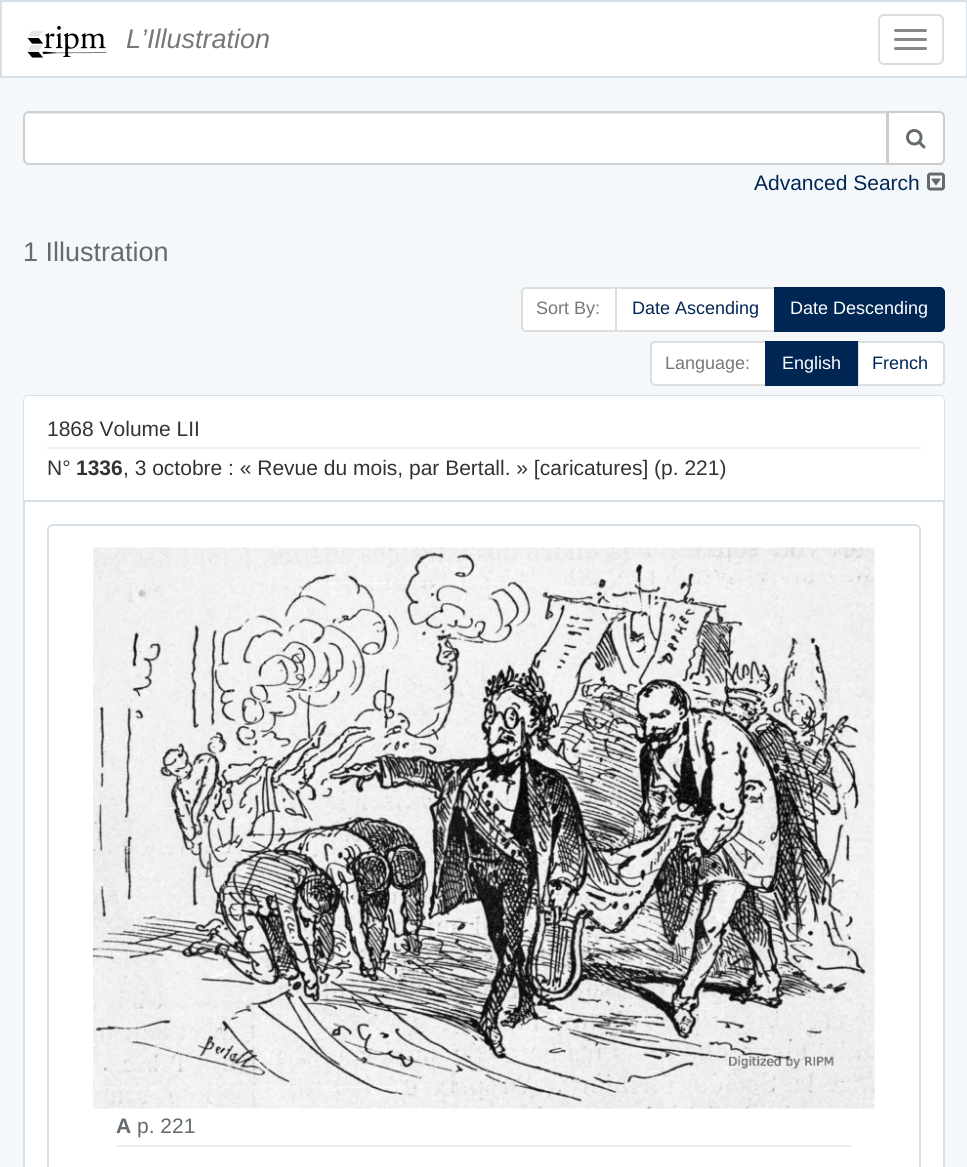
#include <cairo/cairo.h>
#include <math.h>
#include <stddef.h>

static cairo_t *cr;

static void use_color(int r, int g, int b) {
  cairo_set_source_rgb(cr, r / 255.0, g / 255.0, b / 255.0);
}

static void text(double x, double y, const char *s, const char *family, double size, int italic, int bold, int r, int g, int b) {
  cairo_select_font_face(cr, family, italic ? CAIRO_FONT_SLANT_ITALIC : CAIRO_FONT_SLANT_NORMAL,
    bold ? CAIRO_FONT_WEIGHT_BOLD : CAIRO_FONT_WEIGHT_NORMAL);
  cairo_set_font_size(cr, size);
  use_color(r, g, b);
  cairo_move_to(cr, x, y);
  cairo_show_text(cr, s);
}

static void box(double x, double y, double w, double h, int r, int g, int b) {
  use_color(r, g, b);
  cairo_rectangle(cr, x, y, w, h);
  cairo_fill(cr);
}

static void round_rect(double x, double y, double w, double h, double r) {
  cairo_new_sub_path(cr);
  cairo_arc(cr, x + w - r, y + h - r, r, 0, M_PI / 2);
  cairo_arc(cr, x + r, y + h - r, r, M_PI / 2, M_PI);
  cairo_arc(cr, x + r, y + r, r, M_PI, 1.5 * M_PI);
  cairo_arc(cr, x + w - r, y + r, r, 1.5 * M_PI, 2 * M_PI);
  cairo_close_path(cr);
}

static void picture(const char *path, double x, double y, double w, double h) {
  cairo_surface_t *image = cairo_image_surface_create_from_png(path);
  cairo_save(cr);
  cairo_set_source_surface(cr, image, x, y);
  cairo_rectangle(cr, x, y, w, h);
  cairo_fill(cr);
  cairo_restore(cr);
  cairo_surface_destroy(image);
}

static void draw(void) {
  use_color(245, 248, 250);
  cairo_paint(cr);
  use_color(255, 255, 255);
  cairo_rectangle(cr, 1, 1, 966, 76);
  cairo_fill_preserve(cr);
  use_color(211, 224, 233);
  cairo_stroke(cr);
  picture("img_01.png", 27, 26, 80, 32);
  round_rect(879, 15, 64, 49, 5);
  use_color(221, 221, 221);
  cairo_stroke(cr);
  use_color(136, 136, 136);
  round_rect(894, 29, 33, 3, 1.5);
  cairo_fill(cr);
  round_rect(894, 38, 33, 3, 1.5);
  cairo_fill(cr);
  round_rect(894, 47, 33, 3, 1.5);
  cairo_fill(cr);
  use_color(255, 255, 255);
  cairo_new_path(cr);
  cairo_move_to(cr, 29, 111);
  cairo_line_to(cr, 888, 111);
  cairo_line_to(cr, 888, 165);
  cairo_line_to(cr, 29, 165);
  cairo_curve_to(cr, 25.5, 165, 23, 162.5, 23, 159);
  cairo_line_to(cr, 23, 117);
  cairo_curve_to(cr, 23, 113.5, 25.5, 111, 29, 111);
  cairo_close_path(cr);
  cairo_fill(cr);
  use_color(236, 236, 236);
  cairo_new_path(cr);
  cairo_move_to(cr, 28, 114);
  cairo_line_to(cr, 886, 114);
  cairo_line_to(cr, 886, 164);
  cairo_line_to(cr, 887, 164);
  cairo_line_to(cr, 887, 113);
  cairo_line_to(cr, 29, 113);
  cairo_curve_to(cr, 26, 113, 24, 115, 24, 118);
  cairo_curve_to(cr, 24, 116, 26, 114, 28, 114);
  cairo_close_path(cr);
  cairo_fill(cr);
  cairo_new_path(cr);
  cairo_move_to(cr, 29, 112);
  cairo_line_to(cr, 887, 112);
  cairo_line_to(cr, 887, 164);
  cairo_line_to(cr, 29, 164);
  cairo_curve_to(cr, 26, 164, 24, 162, 24, 159);
  cairo_line_to(cr, 24, 117);
  cairo_curve_to(cr, 24, 114, 26, 112, 29, 112);
  cairo_close_path(cr);
  use_color(204, 208, 210);
  cairo_stroke(cr);
  use_color(255, 255, 255);
  cairo_new_path(cr);
  cairo_move_to(cr, 888, 112);
  cairo_line_to(cr, 939, 112);
  cairo_curve_to(cr, 942, 112, 944, 114, 944, 117);
  cairo_line_to(cr, 944, 159);
  cairo_curve_to(cr, 944, 162, 942, 164, 939, 164);
  cairo_line_to(cr, 888, 164);
  cairo_close_path(cr);
  cairo_fill_preserve(cr);
  use_color(204, 204, 204);
  cairo_stroke(cr);
  picture("img_02.png", 906, 129, 20, 20);
  picture("img_03.png", 927, 172, 18, 19);
  use_color(255, 255, 255);
  cairo_new_path(cr);
  cairo_move_to(cr, 526, 288);
  cairo_line_to(cr, 616, 288);
  cairo_line_to(cr, 616, 331);
  cairo_line_to(cr, 526, 331);
  cairo_curve_to(cr, 524, 331, 522, 329, 522, 327);
  cairo_line_to(cr, 522, 292);
  cairo_curve_to(cr, 522, 290, 524, 288, 526, 288);
  cairo_close_path(cr);
  cairo_fill_preserve(cr);
  use_color(221, 221, 221);
  cairo_stroke(cr);
  use_color(255, 255, 255);
  cairo_rectangle(cr, 616, 288, 159, 43);
  cairo_fill_preserve(cr);
  use_color(221, 221, 221);
  cairo_stroke(cr);
  use_color(0, 38, 84);
  cairo_new_path(cr);
  cairo_move_to(cr, 775, 288);
  cairo_line_to(cr, 940, 288);
  cairo_curve_to(cr, 942, 288, 944, 290, 944, 292);
  cairo_line_to(cr, 944, 327);
  cairo_curve_to(cr, 944, 329, 942, 331, 940, 331);
  cairo_line_to(cr, 775, 331);
  cairo_close_path(cr);
  cairo_fill_preserve(cr);
  cairo_stroke(cr);
  use_color(255, 255, 255);
  cairo_new_path(cr);
  cairo_move_to(cr, 655, 342);
  cairo_line_to(cr, 766, 342);
  cairo_line_to(cr, 766, 385);
  cairo_line_to(cr, 655, 385);
  cairo_curve_to(cr, 653, 385, 651, 383, 651, 381);
  cairo_line_to(cr, 651, 346);
  cairo_curve_to(cr, 651, 344, 653, 342, 655, 342);
  cairo_close_path(cr);
  cairo_fill_preserve(cr);
  use_color(221, 221, 221);
  cairo_stroke(cr);
  use_color(255, 255, 255);
  cairo_new_path(cr);
  cairo_move_to(cr, 858, 342);
  cairo_line_to(cr, 940, 342);
  cairo_curve_to(cr, 942, 342, 944, 344, 944, 346);
  cairo_line_to(cr, 944, 381);
  cairo_curve_to(cr, 944, 383, 942, 385, 940, 385);
  cairo_line_to(cr, 858, 385);
  cairo_close_path(cr);
  cairo_fill_preserve(cr);
  use_color(221, 221, 221);
  cairo_stroke(cr);
  box(765, 341, 93, 45, 0, 38, 84);
  use_color(255, 255, 255);
  round_rect(24, 396, 920, 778, 5);
  cairo_fill_preserve(cr);
  use_color(211, 224, 233);
  cairo_stroke(cr);
  use_color(255, 255, 255);
  cairo_new_path(cr);
  cairo_move_to(cr, 29, 396);
  cairo_line_to(cr, 939, 396);
  cairo_curve_to(cr, 942, 396, 944, 398, 944, 401);
  cairo_line_to(cr, 944, 501);
  cairo_line_to(cr, 24, 501);
  cairo_line_to(cr, 24, 401);
  cairo_curve_to(cr, 24, 398, 26, 396, 29, 396);
  cairo_close_path(cr);
  cairo_fill(cr);
  box(24, 500, 920, 2, 211, 224, 233);
  box(47, 447, 874, 2, 238, 238, 238);
  round_rect(48, 525, 872, 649, 5);
  use_color(211, 224, 233);
  cairo_stroke(cr);
  picture("img_04.png", 93, 547, 782, 562);
  box(116, 1145, 736, 2, 238, 238, 238);
  text(126, 48, "L’Illustration", "Liberation Sans", 27, 1, 0, 119, 119, 119);
  text(754, 190, "Advanced Search", "Liberation Sans", 21, 0, 0, 0, 38, 84);
  text(23, 261, "1 Illustration", "Liberation Sans", 27, 0, 0, 99, 107, 111);
  text(536, 314, "Sort By:", "Liberation Sans", 18, 0, 0, 119, 119, 119);
  text(632, 314, "Date Ascending", "Liberation Sans", 18, 0, 0, 0, 38, 84);
  text(790, 314, "Date Descending", "Liberation Sans", 18, 0, 0, 255, 255, 255);
  text(665, 369, "Language:", "Liberation Sans", 18, 0, 0, 119, 119, 119);
  text(782, 369, "English", "Liberation Sans", 18, 0, 0, 255, 255, 255);
  text(872, 369, "French", "Liberation Sans", 18, 0, 0, 0, 38, 84);
  text(47, 436, "1868 Volume LII", "Liberation Sans", 21, 0, 0, 51, 51, 51);
  text(47, 475, "N°", "Liberation Sans", 21, 0, 0, 51, 51, 51);
  text(76, 475, "1336", "Liberation Sans", 21, 0, 1, 51, 51, 51);
  text(123, 475, ", 3 octobre : « Revue du mois, par Bertall. » [caricatures] (p. 221)", "Liberation Sans", 21, 0, 0, 51, 51, 51);
  text(116, 1133, "A", "Liberation Sans", 21, 0, 1, 99, 107, 111);
  text(137, 1133, "p. 221", "Liberation Sans", 21, 0, 0, 99, 107, 111);
}

int main(void) {
  cairo_surface_t *surface = cairo_image_surface_create(CAIRO_FORMAT_RGB24, 967, 1167);
  cr = cairo_create(surface);
  cairo_font_options_t *options = cairo_font_options_create();
  cairo_font_options_set_hint_metrics(options, CAIRO_HINT_METRICS_OFF);
  cairo_font_options_set_hint_style(options, CAIRO_HINT_STYLE_NONE);
  cairo_set_font_options(cr, options);
  cairo_set_miter_limit(cr, 4);
  draw();
  cairo_surface_write_to_png(surface, "out.png");
  cairo_font_options_destroy(options);
  cairo_destroy(cr);
  cairo_surface_destroy(surface);
  return 0;
}
